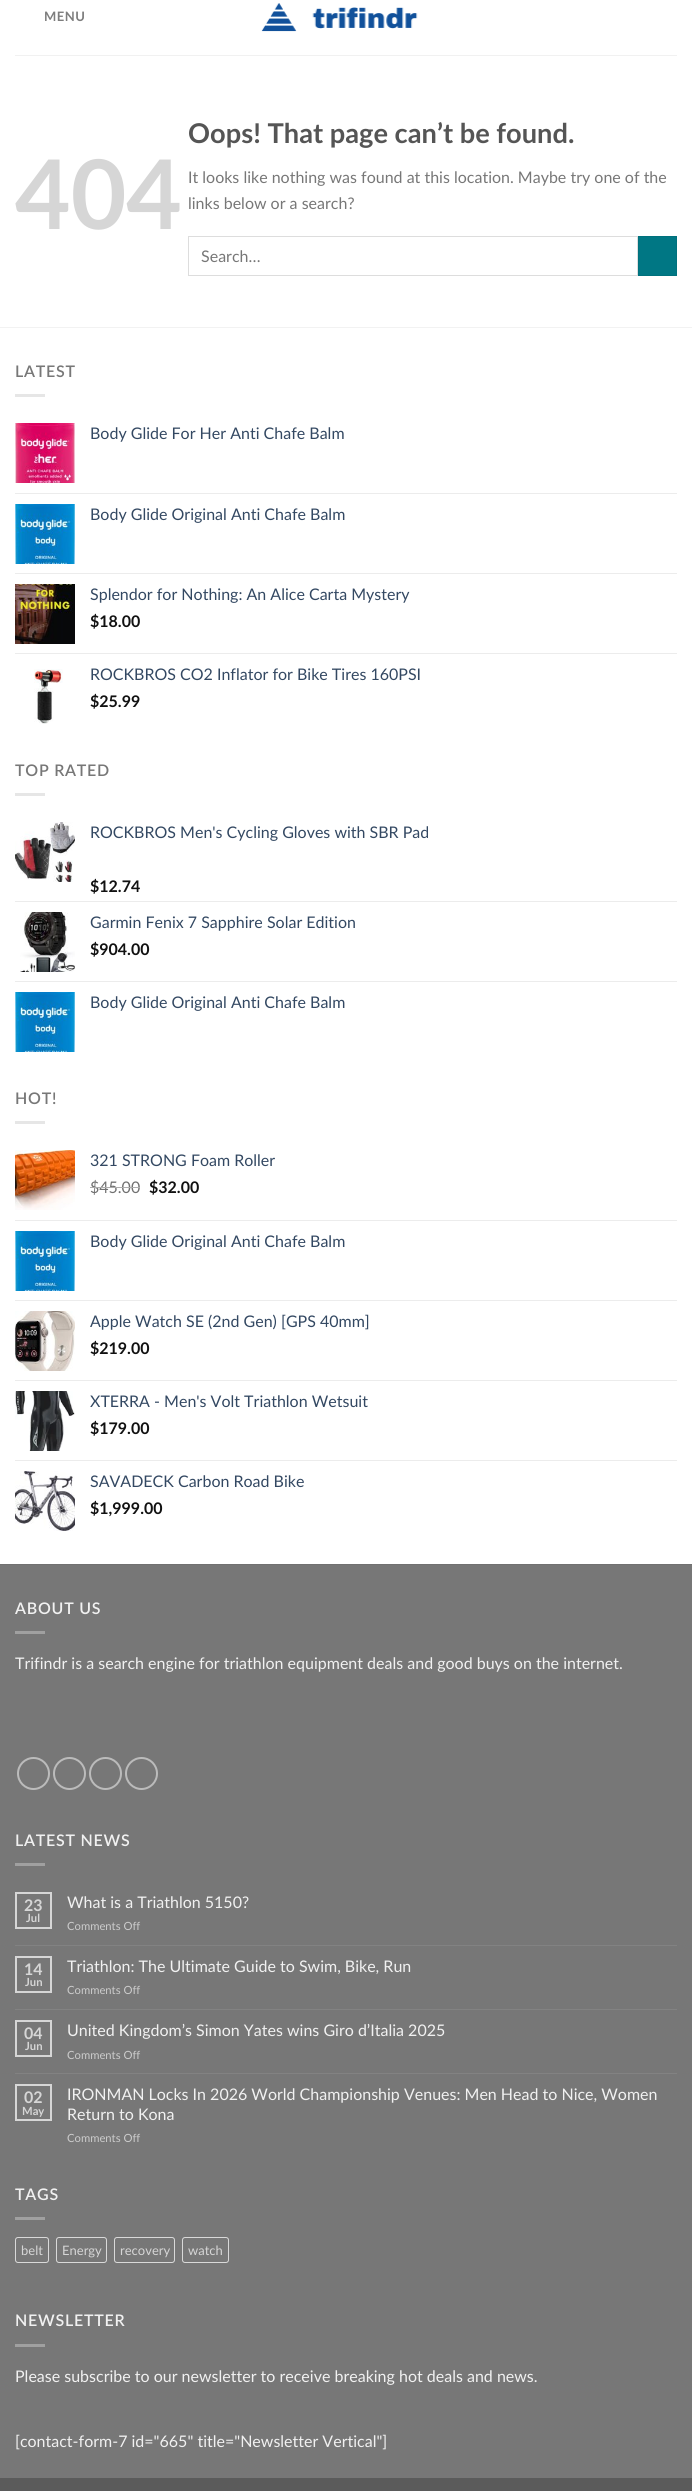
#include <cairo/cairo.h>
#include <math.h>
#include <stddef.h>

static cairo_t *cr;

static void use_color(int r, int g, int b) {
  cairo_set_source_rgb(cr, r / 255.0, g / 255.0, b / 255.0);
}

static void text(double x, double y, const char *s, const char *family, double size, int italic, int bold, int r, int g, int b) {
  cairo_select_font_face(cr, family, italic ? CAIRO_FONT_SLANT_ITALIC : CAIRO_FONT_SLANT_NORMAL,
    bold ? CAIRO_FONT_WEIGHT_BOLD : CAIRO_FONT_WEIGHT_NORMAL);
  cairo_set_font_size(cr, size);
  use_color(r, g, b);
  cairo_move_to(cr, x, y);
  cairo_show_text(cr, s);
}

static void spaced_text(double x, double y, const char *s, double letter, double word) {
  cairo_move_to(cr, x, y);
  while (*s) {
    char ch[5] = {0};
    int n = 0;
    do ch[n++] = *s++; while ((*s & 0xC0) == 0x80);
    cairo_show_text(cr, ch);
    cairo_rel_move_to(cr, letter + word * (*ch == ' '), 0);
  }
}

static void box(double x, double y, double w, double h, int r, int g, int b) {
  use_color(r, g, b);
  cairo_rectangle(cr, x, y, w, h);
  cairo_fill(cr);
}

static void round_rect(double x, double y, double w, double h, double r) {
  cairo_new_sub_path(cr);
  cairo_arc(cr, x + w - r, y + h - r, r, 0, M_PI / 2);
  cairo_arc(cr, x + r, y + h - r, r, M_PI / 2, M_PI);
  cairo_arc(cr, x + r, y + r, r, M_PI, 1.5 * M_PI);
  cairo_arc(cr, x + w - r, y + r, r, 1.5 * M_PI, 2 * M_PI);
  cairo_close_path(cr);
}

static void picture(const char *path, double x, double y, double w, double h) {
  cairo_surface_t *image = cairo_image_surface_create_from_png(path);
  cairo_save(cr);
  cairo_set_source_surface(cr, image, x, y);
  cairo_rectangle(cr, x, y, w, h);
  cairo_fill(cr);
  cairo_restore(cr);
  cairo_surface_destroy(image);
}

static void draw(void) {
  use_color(255, 255, 255);
  cairo_paint(cr);
  picture("img_01.png", 261, 3, 157, 29);
  box(15, 55, 662, 1, 241, 241, 241);
  cairo_rectangle(cr, 188.5, 236.5, 449, 39);
  use_color(221, 221, 221);
  cairo_set_line_width(cr, 1);
  cairo_stroke(cr);
  use_color(0, 119, 132);
  cairo_rectangle(cr, 638.5, 236.5, 38, 39);
  cairo_fill_preserve(cr);
  use_color(0, 113, 125);
  cairo_stroke(cr);
  box(0, 327, 692, 1, 242, 242, 242);
  box(15, 394, 30, 3, 230, 230, 230);
  picture("img_02.png", 15, 423, 60, 60);
  box(15, 493, 662, 1, 236, 236, 236);
  picture("img_03.png", 15, 504, 60, 60);
  box(15, 573, 662, 1, 236, 236, 236);
  picture("img_04.png", 15, 584, 60, 60);
  box(15, 653, 662, 1, 236, 236, 236);
  picture("img_05.png", 34, 669, 29, 55);
  box(15, 793, 30, 3, 230, 230, 230);
  picture("img_06.png", 15, 822, 60, 60);
  box(15, 901, 662, 1, 236, 236, 236);
  picture("img_07.png", 20, 912, 55, 60);
  box(15, 981, 662, 1, 236, 236, 236);
  picture("img_03.png", 15, 992, 60, 60);
  box(15, 1121, 30, 3, 230, 230, 230);
  picture("img_08.png", 15, 1150, 60, 60);
  box(15, 1220, 662, 1, 236, 236, 236);
  picture("img_03.png", 15, 1231, 60, 60);
  box(15, 1300, 662, 1, 236, 236, 236);
  picture("img_09.png", 15, 1311, 60, 60);
  box(15, 1380, 662, 1, 236, 236, 236);
  picture("img_10.png", 15, 1391, 60, 60);
  box(15, 1460, 662, 1, 236, 236, 236);
  picture("img_11.png", 15, 1471, 60, 60);
  box(0, 1565, 692, 913, 119, 119, 119);
  box(0, 1564, 692, 1, 113, 113, 113);
  box(15, 1631, 30, 3, 160, 160, 160);
  cairo_arc(cr, 33.5, 1773.5, 15.5, 0, 2 * M_PI);
  use_color(187, 187, 187);
  cairo_set_line_width(cr, 2);
  cairo_stroke(cr);
  cairo_arc(cr, 69.5, 1773.5, 15.5, 0, 2 * M_PI);
  cairo_stroke(cr);
  cairo_arc(cr, 105.5, 1773.5, 15.5, 0, 2 * M_PI);
  cairo_stroke(cr);
  cairo_arc(cr, 141.5, 1773.5, 15.5, 0, 2 * M_PI);
  cairo_stroke(cr);
  box(15, 1863, 30, 3, 160, 160, 160);
  cairo_rectangle(cr, 16, 1893, 35, 35);
  use_color(214, 214, 214);
  cairo_stroke(cr);
  box(15, 1945, 662, 1, 130, 130, 130);
  cairo_rectangle(cr, 16, 1957, 35, 35);
  use_color(214, 214, 214);
  cairo_stroke(cr);
  box(15, 2009, 662, 1, 130, 130, 130);
  cairo_rectangle(cr, 16, 2021, 35, 35);
  use_color(214, 214, 214);
  cairo_stroke(cr);
  box(15, 2073, 662, 1, 130, 130, 130);
  cairo_rectangle(cr, 16, 2085, 35, 35);
  use_color(214, 214, 214);
  cairo_stroke(cr);
  box(15, 2217, 30, 3, 160, 160, 160);
  round_rect(15.5, 2237.5, 33, 25, 2.5);
  use_color(217, 217, 217);
  cairo_set_line_width(cr, 1);
  cairo_stroke(cr);
  round_rect(56.5, 2237.5, 50, 25, 2.5);
  cairo_stroke(cr);
  round_rect(114.5, 2237.5, 60, 25, 2.5);
  cairo_stroke(cr);
  round_rect(182.5, 2237.5, 46, 25, 2.5);
  cairo_stroke(cr);
  box(15, 2344, 30, 3, 160, 160, 160);
  box(0, 2478, 692, 13, 91, 91, 91);
  cairo_select_font_face(cr, "Lato", CAIRO_FONT_SLANT_NORMAL, CAIRO_FONT_WEIGHT_BOLD);
  cairo_set_font_size(cr, 13);
  use_color(125, 125, 125);
  spaced_text(44, 21, "MENU", 0.5, 0);
  text(15, 229, "404", "Lato", 96, 0, 1, 214, 214, 214);
  text(188, 143, "Oops! That page can’t be found.", "Lato", 27.25, 0, 1, 85, 85, 85);
  text(188, 183, "It looks like nothing was found at this location. Maybe try one of the", "Lato", 16, 0, 0, 119, 119, 119);
  text(188, 209, "links below or a search?", "Lato", 16, 0, 0, 119, 119, 119);
  text(201, 262, "Search…", "Lato", 16, 0, 0, 119, 119, 119);
  cairo_select_font_face(cr, "Lato SemiBold", CAIRO_FONT_SLANT_NORMAL, CAIRO_FONT_WEIGHT_NORMAL);
  spaced_text(15, 377, "LATEST", 0.75, 0);
  text(90, 439, "Body Glide For Her Anti Chafe Balm", "Lato", 16, 0, 0, 51, 72, 98);
  text(90, 520, "Body Glide Original Anti Chafe Balm", "Lato", 16, 0, 0, 51, 72, 98);
  text(90, 600, "Splendor for Nothing: An Alice Carta Mystery", "Lato", 16, 0, 0, 51, 72, 98);
  text(90, 627, "$18.00", "Lato", 16, 0, 1, 17, 17, 17);
  text(90, 680, "ROCKBROS CO2 Inflator for Bike Tires 160PSI", "Lato", 16, 0, 0, 51, 72, 98);
  text(90, 707, "$25.99", "Lato", 16, 0, 1, 17, 17, 17);
  cairo_select_font_face(cr, "Lato SemiBold", CAIRO_FONT_SLANT_NORMAL, CAIRO_FONT_WEIGHT_NORMAL);
  use_color(119, 119, 119);
  spaced_text(15, 776, "TOP RATED", 0.75, 0);
  text(90, 838, "ROCKBROS Men's Cycling Gloves with SBR Pad", "Lato", 16, 0, 0, 51, 72, 98);
  text(90, 892, "$12.74", "Lato", 16, 0, 1, 17, 17, 17);
  text(90, 928, "Garmin Fenix 7 Sapphire Solar Edition", "Lato", 16, 0, 0, 51, 72, 98);
  text(90, 955, "$904.00", "Lato", 16, 0, 1, 17, 17, 17);
  text(90, 1008, "Body Glide Original Anti Chafe Balm", "Lato", 16, 0, 0, 51, 72, 98);
  cairo_select_font_face(cr, "Lato SemiBold", CAIRO_FONT_SLANT_NORMAL, CAIRO_FONT_WEIGHT_NORMAL);
  use_color(119, 119, 119);
  spaced_text(15, 1104, "HOT!", 0.75, 0);
  text(90, 1166, "321 STRONG Foam Roller", "Lato", 16, 0, 0, 51, 72, 98);
  text(90, 1193, "$45.00", "Lato", 16, 0, 0, 112, 112, 112);
  box(90, 1187, 50, 1, 173, 173, 173);
  text(149, 1193, "$32.00", "Lato", 16, 0, 1, 17, 17, 17);
  text(90, 1247, "Body Glide Original Anti Chafe Balm", "Lato", 16, 0, 0, 51, 72, 98);
  text(90, 1327, "Apple Watch SE (2nd Gen) [GPS 40mm]", "Lato", 16, 0, 0, 51, 72, 98);
  text(90, 1354, "$219.00", "Lato", 16, 0, 1, 17, 17, 17);
  text(90, 1407, "XTERRA - Men's Volt Triathlon Wetsuit", "Lato", 16, 0, 0, 51, 72, 98);
  text(90, 1434, "$179.00", "Lato", 16, 0, 1, 17, 17, 17);
  text(90, 1487, "SAVADECK Carbon Road Bike", "Lato", 16, 0, 0, 51, 72, 98);
  text(90, 1514, "$1,999.00", "Lato", 16, 0, 1, 17, 17, 17);
  cairo_select_font_face(cr, "Lato SemiBold", CAIRO_FONT_SLANT_NORMAL, CAIRO_FONT_WEIGHT_NORMAL);
  use_color(241, 241, 241);
  spaced_text(15, 1614, "ABOUT US", 0.75, 0);
  text(15, 1669, "Trifindr is a search engine for triathlon equipment deals and good buys on the internet.", "Lato", 16, 0, 0, 241, 241, 241);
  cairo_select_font_face(cr, "Lato SemiBold", CAIRO_FONT_SLANT_NORMAL, CAIRO_FONT_WEIGHT_NORMAL);
  spaced_text(15, 1846, "LATEST NEWS", 0.75, 0);
  text(24, 1911, "23", "Lato", 16, 0, 1, 214, 214, 214);
  text(26, 1922, "Jul", "Lato", 11.25, 0, 1, 214, 214, 214);
  text(67, 1908, "What is a Triathlon 5150?", "Lato", 16, 0, 0, 241, 241, 241);
  text(67, 1930, "Comments Off", "Lato", 11.25, 0, 0, 204, 204, 204);
  text(24, 1975, "14", "Lato", 16, 0, 1, 214, 214, 214);
  text(25, 1986, "Jun", "Lato", 11.25, 0, 1, 214, 214, 214);
  text(67, 1972, "Triathlon: The Ultimate Guide to Swim, Bike, Run", "Lato", 16, 0, 0, 241, 241, 241);
  text(67, 1994, "Comments Off", "Lato", 11.25, 0, 0, 204, 204, 204);
  text(24, 2039, "04", "Lato", 16, 0, 1, 214, 214, 214);
  text(25, 2050, "Jun", "Lato", 11.25, 0, 1, 214, 214, 214);
  text(67, 2036, "United Kingdom’s Simon Yates wins Giro d’Italia 2025", "Lato", 16, 0, 0, 241, 241, 241);
  text(67, 2059, "Comments Off", "Lato", 11.25, 0, 0, 204, 204, 204);
  text(24, 2103, "02", "Lato", 16, 0, 1, 214, 214, 214);
  text(22, 2115, "May", "Lato", 11.25, 0, 1, 214, 214, 214);
  text(67, 2100, "IRONMAN Locks In 2026 World Championship Venues: Men Head to Nice, Women", "Lato", 16, 0, 0, 241, 241, 241);
  text(67, 2120, "Return to Kona", "Lato", 16, 0, 0, 241, 241, 241);
  text(67, 2142, "Comments Off", "Lato", 11.25, 0, 0, 204, 204, 204);
  cairo_select_font_face(cr, "Lato SemiBold", CAIRO_FONT_SLANT_NORMAL, CAIRO_FONT_WEIGHT_NORMAL);
  cairo_set_font_size(cr, 16);
  use_color(241, 241, 241);
  spaced_text(15, 2200, "TAGS", 0.75, 0);
  text(21, 2255, "belt", "Lato", 13, 0, 0, 214, 214, 214);
  text(62, 2255, "Energy", "Lato", 13, 0, 0, 214, 214, 214);
  text(120, 2255, "recovery", "Lato", 13, 0, 0, 214, 214, 214);
  text(188, 2255, "watch", "Lato", 13, 0, 0, 214, 214, 214);
  cairo_select_font_face(cr, "Lato SemiBold", CAIRO_FONT_SLANT_NORMAL, CAIRO_FONT_WEIGHT_NORMAL);
  cairo_set_font_size(cr, 16);
  use_color(241, 241, 241);
  spaced_text(15, 2326, "NEWSLETTER", 0.75, 0);
  text(15, 2382, "Please subscribe to our newsletter to receive breaking hot deals and news.", "Lato", 16, 0, 0, 241, 241, 241);
  text(15, 2447, "[contact-form-7 id=\"665\" title=\"Newsletter Vertical\"]", "Lato", 16, 0, 0, 241, 241, 241);
}

int main(void) {
  cairo_surface_t *surface = cairo_image_surface_create(CAIRO_FORMAT_RGB24, 692, 2491);
  cr = cairo_create(surface);
  cairo_font_options_t *options = cairo_font_options_create();
  cairo_font_options_set_hint_metrics(options, CAIRO_HINT_METRICS_OFF);
  cairo_font_options_set_hint_style(options, CAIRO_HINT_STYLE_NONE);
  cairo_set_font_options(cr, options);
  cairo_set_miter_limit(cr, 4);
  draw();
  cairo_surface_write_to_png(surface, "out.png");
  cairo_font_options_destroy(options);
  cairo_destroy(cr);
  cairo_surface_destroy(surface);
  return 0;
}
